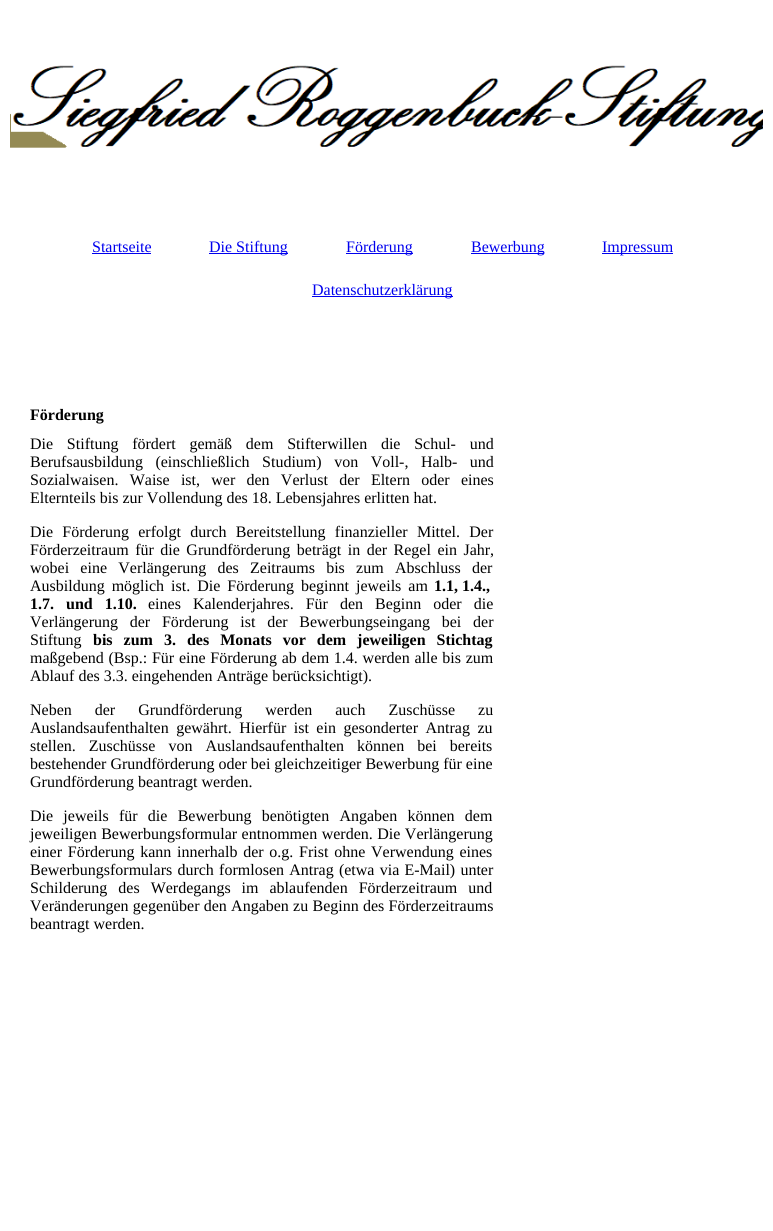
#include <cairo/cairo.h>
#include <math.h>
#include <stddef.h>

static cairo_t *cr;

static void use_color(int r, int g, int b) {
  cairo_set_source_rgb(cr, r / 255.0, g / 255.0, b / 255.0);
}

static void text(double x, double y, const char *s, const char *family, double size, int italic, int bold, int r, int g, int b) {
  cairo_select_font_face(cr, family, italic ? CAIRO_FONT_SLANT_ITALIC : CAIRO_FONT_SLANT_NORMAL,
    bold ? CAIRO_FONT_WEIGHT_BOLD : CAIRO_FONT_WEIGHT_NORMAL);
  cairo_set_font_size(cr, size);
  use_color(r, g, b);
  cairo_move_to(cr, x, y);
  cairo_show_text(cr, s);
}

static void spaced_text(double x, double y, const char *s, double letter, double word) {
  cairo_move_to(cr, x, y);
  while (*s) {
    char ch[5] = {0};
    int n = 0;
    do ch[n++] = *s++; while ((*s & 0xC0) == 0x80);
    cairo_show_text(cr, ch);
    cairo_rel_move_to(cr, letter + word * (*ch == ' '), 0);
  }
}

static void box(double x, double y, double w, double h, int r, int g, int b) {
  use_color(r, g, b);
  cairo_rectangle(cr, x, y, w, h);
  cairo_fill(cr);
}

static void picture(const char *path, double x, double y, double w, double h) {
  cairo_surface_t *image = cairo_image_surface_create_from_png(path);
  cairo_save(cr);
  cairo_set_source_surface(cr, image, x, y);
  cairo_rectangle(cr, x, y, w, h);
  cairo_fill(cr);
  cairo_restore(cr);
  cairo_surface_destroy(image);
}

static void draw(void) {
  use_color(255, 255, 255);
  cairo_paint(cr);
  picture("img_01.png", 10, 65, 753, 83);
  box(92, 253, 59, 1, 0, 0, 238);
  box(209, 253, 79, 1, 0, 0, 238);
  box(346, 253, 67, 1, 0, 0, 238);
  box(471, 253, 73, 1, 0, 0, 238);
  box(602, 253, 71, 1, 0, 0, 238);
  box(312, 296, 141, 1, 0, 0, 238);
  text(92, 252, "Startseite", "Liberation Serif", 16, 0, 0, 0, 0, 238);
  text(209, 252, "Die Stiftung", "Liberation Serif", 16, 0, 0, 0, 0, 238);
  text(346, 252, "Förderung", "Liberation Serif", 16, 0, 0, 0, 0, 238);
  text(471, 252, "Bewerbung", "Liberation Serif", 16, 0, 0, 0, 0, 238);
  text(602, 252, "Impressum", "Liberation Serif", 16, 0, 0, 0, 0, 238);
  text(312, 295, "Datenschutzerklärung", "Liberation Serif", 16, 0, 0, 0, 0, 238);
  text(30, 420, "Förderung", "Liberation Serif", 16, 0, 1, 0, 0, 0);
  cairo_select_font_face(cr, "Liberation Serif", CAIRO_FONT_SLANT_NORMAL, CAIRO_FONT_WEIGHT_NORMAL);
  spaced_text(30, 449, "Die Stiftung fördert gemäß dem Stifterwillen die Schul- und", 0, 9.75);
  spaced_text(30, 467, "Berufsausbildung (einschließlich Studium) von Voll-, Halb- und", 0, 8.5);
  spaced_text(30, 485, "Sozialwaisen. Waise ist, wer den Verlust der Eltern oder eines", 0, 7.25);
  text(30, 503, "Elternteils bis zur Vollendung des 18. Lebensjahres erlitten hat.", "Liberation Serif", 16, 0, 0, 0, 0, 0);
  spaced_text(30, 537, "Die Förderung erfolgt durch Bereitstellung finanzieller Mittel. Der", 0, 5.25);
  spaced_text(30, 555, "Förderzeitraum für die Grundförderung beträgt in der Regel ein Jahr,", 0, 2.5);
  spaced_text(30, 573, "wobei eine Verlängerung des Zeitraums bis zum Abschluss der", 0, 7.25);
  spaced_text(30, 591, "Ausbildung möglich ist. Die Förderung beginnt jeweils am", 0, 3);
  text(434, 591, "1.1, 1.4.,", "Liberation Serif", 16, 0, 1, 0, 0, 0);
  spaced_text(30, 609, "1.7. und 1.10.", 0, 8);
  cairo_select_font_face(cr, "Liberation Serif", CAIRO_FONT_SLANT_NORMAL, CAIRO_FONT_WEIGHT_NORMAL);
  spaced_text(148, 609, "eines Kalenderjahres. Für den Beginn oder die", 0, 8);
  spaced_text(30, 627, "Verlängerung der Förderung ist der Bewerbungseingang bei der", 0, 7.75);
  text(30, 645, "Stiftung", "Liberation Serif", 16, 0, 0, 0, 0, 0);
  cairo_select_font_face(cr, "Liberation Serif", CAIRO_FONT_SLANT_NORMAL, CAIRO_FONT_WEIGHT_BOLD);
  spaced_text(93, 645, "bis zum 3. des Monats vor dem jeweiligen Stichtag", 0, 7);
  cairo_select_font_face(cr, "Liberation Serif", CAIRO_FONT_SLANT_NORMAL, CAIRO_FONT_WEIGHT_NORMAL);
  spaced_text(30, 663, "maßgebend (Bsp.: Für eine Förderung ab dem 1.4. werden alle bis zum", 0, 0.75);
  text(30, 681, "Ablauf des 3.3. eingehenden Anträge berücksichtigt).", "Liberation Serif", 16, 0, 0, 0, 0, 0);
  spaced_text(30, 715, "Neben der Grundförderung werden auch Zuschüsse zu", 0, 19);
  spaced_text(30, 733, "Auslandsaufenthalten gewährt. Hierfür ist ein gesonderter Antrag zu", 0, 3.5);
  spaced_text(30, 751, "stellen. Zuschüsse von Auslandsaufenthalten können bei bereits", 0, 9);
  text(30, 769, "bestehender Grundförderung oder bei gleichzeitiger Bewerbung für eine", "Liberation Serif", 16, 0, 0, 0, 0, 0);
  text(30, 787, "Grundförderung beantragt werden.", "Liberation Serif", 16, 0, 0, 0, 0, 0);
  spaced_text(30, 821, "Die jeweils für die Bewerbung benötigten Angaben können dem", 0, 6.25);
  spaced_text(30, 839, "jeweiligen Bewerbungsformular entnommen werden. Die Verlängerung", 0, 0.5);
  spaced_text(30, 857, "einer Förderung kann innerhalb der o.g. Frist ohne Verwendung eines", 0, 1.75);
  spaced_text(30, 875, "Bewerbungsformulars durch formlosen Antrag (etwa via E-Mail) unter", 0, 1.25);
  spaced_text(30, 893, "Schilderung des Werdegangs im ablaufenden Förderzeitraum und", 0, 7);
  spaced_text(30, 911, "Veränderungen gegenüber den Angaben zu Beginn des Förderzeitraums", 0, 0.25);
  text(30, 929, "beantragt werden.", "Liberation Serif", 16, 0, 0, 0, 0, 0);
}

int main(void) {
  cairo_surface_t *surface = cairo_image_surface_create(CAIRO_FORMAT_RGB24, 773, 1231);
  cr = cairo_create(surface);
  cairo_font_options_t *options = cairo_font_options_create();
  cairo_font_options_set_hint_metrics(options, CAIRO_HINT_METRICS_OFF);
  cairo_font_options_set_hint_style(options, CAIRO_HINT_STYLE_NONE);
  cairo_set_font_options(cr, options);
  cairo_set_miter_limit(cr, 4);
  draw();
  cairo_surface_write_to_png(surface, "out.png");
  cairo_font_options_destroy(options);
  cairo_destroy(cr);
  cairo_surface_destroy(surface);
  return 0;
}
